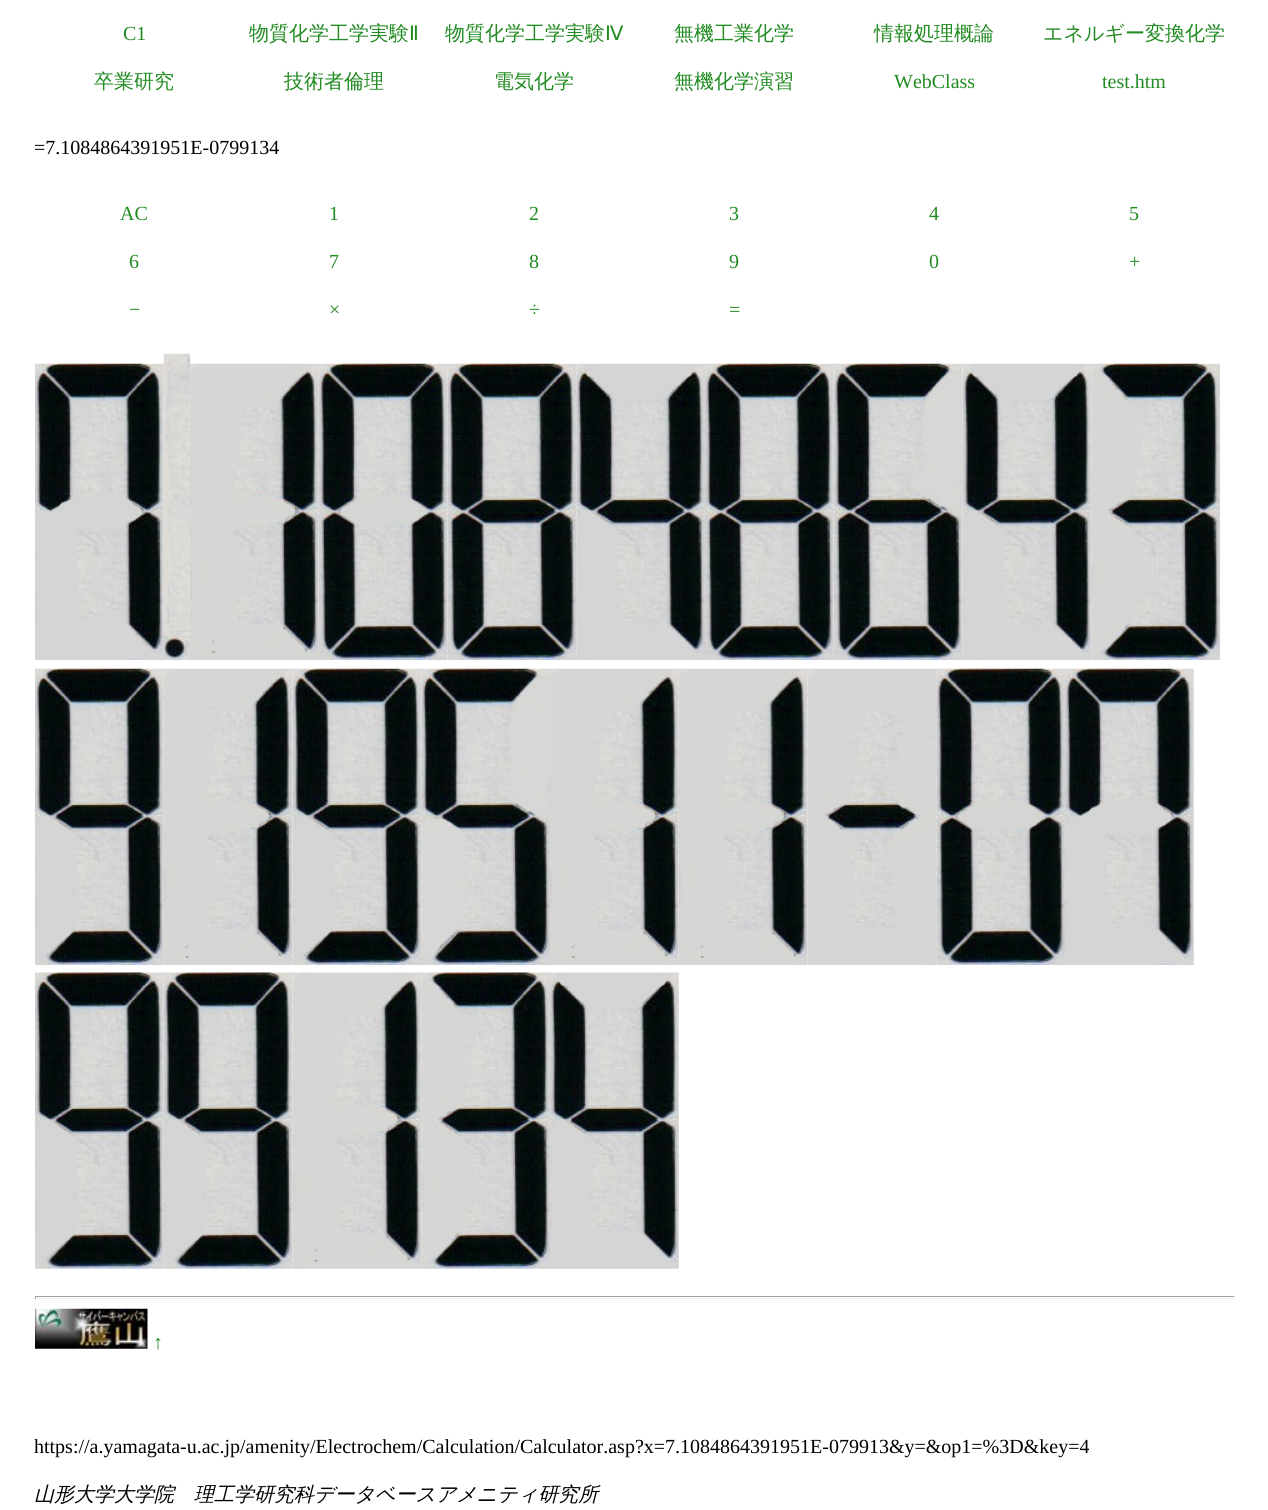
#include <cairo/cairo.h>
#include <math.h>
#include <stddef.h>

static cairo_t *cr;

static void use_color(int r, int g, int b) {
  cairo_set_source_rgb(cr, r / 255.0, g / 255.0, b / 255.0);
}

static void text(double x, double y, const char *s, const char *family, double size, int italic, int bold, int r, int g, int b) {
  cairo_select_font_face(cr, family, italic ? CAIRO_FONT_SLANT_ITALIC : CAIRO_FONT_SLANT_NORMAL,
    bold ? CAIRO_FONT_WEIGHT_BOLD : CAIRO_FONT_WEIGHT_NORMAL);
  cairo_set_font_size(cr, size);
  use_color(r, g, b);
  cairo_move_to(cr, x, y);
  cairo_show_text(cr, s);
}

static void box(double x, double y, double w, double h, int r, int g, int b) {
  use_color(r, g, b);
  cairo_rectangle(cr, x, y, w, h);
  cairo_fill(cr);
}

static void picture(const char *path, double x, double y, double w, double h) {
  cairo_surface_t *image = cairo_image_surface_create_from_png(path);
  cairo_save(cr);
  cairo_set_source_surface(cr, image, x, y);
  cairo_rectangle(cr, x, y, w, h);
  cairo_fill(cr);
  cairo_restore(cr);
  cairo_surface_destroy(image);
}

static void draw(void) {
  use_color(255, 255, 255);
  cairo_paint(cr);
  picture("img_01.png", 35, 363, 129, 297);
  picture("img_02.png", 163, 353, 27, 307);
  picture("img_03.png", 190, 363, 129, 297);
  picture("img_04.png", 318, 363, 130, 297);
  picture("img_05.png", 447, 363, 130, 297);
  picture("img_06.png", 576, 363, 129, 297);
  picture("img_07.png", 705, 363, 129, 297);
  picture("img_08.png", 833, 363, 130, 297);
  picture("img_09.png", 962, 363, 130, 297);
  picture("img_10.png", 1091, 363, 129, 297);
  picture("img_11.png", 35, 668, 129, 297);
  picture("img_12.png", 163, 668, 130, 297);
  picture("img_13.png", 292, 668, 130, 297);
  picture("img_14.png", 421, 668, 129, 297);
  picture("img_15.png", 550, 668, 129, 297);
  picture("img_16.png", 678, 668, 130, 297);
  picture("img_17.png", 807, 668, 130, 297);
  picture("img_18.png", 936, 668, 129, 297);
  picture("img_19.png", 1065, 668, 129, 297);
  picture("img_20.png", 35, 972, 129, 297);
  picture("img_21.png", 163, 972, 130, 297);
  picture("img_22.png", 292, 972, 130, 297);
  picture("img_23.png", 421, 972, 129, 297);
  picture("img_24.png", 550, 972, 129, 297);
  box(35, 1296, 1200, 1, 159, 159, 159);
  box(1234, 1296, 1, 3, 238, 238, 238);
  box(35, 1298, 1200, 1, 238, 238, 238);
  box(35, 1296, 1, 3, 159, 159, 159);
  picture("img_25.png", 35, 1308, 113, 41);
  text(123, 40, "C1", "Liberation Serif", 20, 0, 0, 34, 139, 34);
  text(249, 40, "物質化学工学実験", "WenQuanYi Zen Hei Medium", 20, 0, 0, 34, 139, 34);
  text(409, 40, "Ⅱ", "DejaVu Sans", 20, 0, 0, 34, 139, 34);
  text(445, 40, "物質化学工学実験", "WenQuanYi Zen Hei Medium", 20, 0, 0, 34, 139, 34);
  text(605, 40, "Ⅳ", "DejaVu Sans", 20, 0, 0, 34, 139, 34);
  text(674, 40, "無機工業化学", "WenQuanYi Zen Hei Medium", 20, 0, 0, 34, 139, 34);
  text(874, 40, "情報処理概論", "WenQuanYi Zen Hei Medium", 20, 0, 0, 34, 139, 34);
  text(1043, 40, "エネルギー変換化学", "WenQuanYi Zen Hei Medium", 20, 0, 0, 34, 139, 34);
  text(94, 88, "卒業研究", "WenQuanYi Zen Hei Medium", 20, 0, 0, 34, 139, 34);
  text(284, 88, "技術者倫理", "WenQuanYi Zen Hei Medium", 20, 0, 0, 34, 139, 34);
  text(494, 88, "電気化学", "WenQuanYi Zen Hei Medium", 20, 0, 0, 34, 139, 34);
  text(674, 88, "無機化学演習", "WenQuanYi Zen Hei Medium", 20, 0, 0, 34, 139, 34);
  text(894, 88, "WebClass", "Liberation Serif", 20, 0, 0, 34, 139, 34);
  text(1102, 88, "test.htm", "Liberation Serif", 20, 0, 0, 34, 139, 34);
  text(34, 154, "=7.1084864391951E-0799134", "Liberation Serif", 20, 0, 0, 0, 0, 0);
  text(120, 220, "AC", "Liberation Serif", 20, 0, 0, 34, 139, 34);
  text(329, 220, "1", "Liberation Serif", 20, 0, 0, 34, 139, 34);
  text(529, 220, "2", "Liberation Serif", 20, 0, 0, 34, 139, 34);
  text(729, 220, "3", "Liberation Serif", 20, 0, 0, 34, 139, 34);
  text(929, 220, "4", "Liberation Serif", 20, 0, 0, 34, 139, 34);
  text(1129, 220, "5", "Liberation Serif", 20, 0, 0, 34, 139, 34);
  text(129, 268, "6", "Liberation Serif", 20, 0, 0, 34, 139, 34);
  text(329, 268, "7", "Liberation Serif", 20, 0, 0, 34, 139, 34);
  text(529, 268, "8", "Liberation Serif", 20, 0, 0, 34, 139, 34);
  text(729, 268, "9", "Liberation Serif", 20, 0, 0, 34, 139, 34);
  text(929, 268, "0", "Liberation Serif", 20, 0, 0, 34, 139, 34);
  text(1129, 268, "+", "Liberation Serif", 20, 0, 0, 34, 139, 34);
  text(129, 316, "−", "Liberation Serif", 20, 0, 0, 34, 139, 34);
  text(329, 316, "×", "Liberation Serif", 20, 0, 0, 34, 139, 34);
  text(529, 316, "÷", "Liberation Serif", 20, 0, 0, 34, 139, 34);
  text(729, 316, "=", "Liberation Serif", 20, 0, 0, 34, 139, 34);
  text(153, 1349, "↑", "Liberation Serif", 20, 0, 0, 34, 139, 34);
  text(34, 1453, "https://a.yamagata-u.ac.jp/amenity/Electrochem/Calculation/Calculator.asp?x=7.1084864391951E-079913&y=&op1=%3D&key=4", "Liberation Serif", 20, 0, 0, 0, 0, 0);
  text(34, 1501, "山形大学大学院　理工学研究科データベースアメニティ研究所", "WenQuanYi Zen Hei Medium", 20, 1, 0, 0, 0, 0);
}

int main(void) {
  cairo_surface_t *surface = cairo_image_surface_create(CAIRO_FORMAT_RGB24, 1268, 1510);
  cr = cairo_create(surface);
  cairo_font_options_t *options = cairo_font_options_create();
  cairo_font_options_set_hint_metrics(options, CAIRO_HINT_METRICS_OFF);
  cairo_font_options_set_hint_style(options, CAIRO_HINT_STYLE_NONE);
  cairo_set_font_options(cr, options);
  cairo_set_miter_limit(cr, 4);
  draw();
  cairo_surface_write_to_png(surface, "out.png");
  cairo_font_options_destroy(options);
  cairo_destroy(cr);
  cairo_surface_destroy(surface);
  return 0;
}
